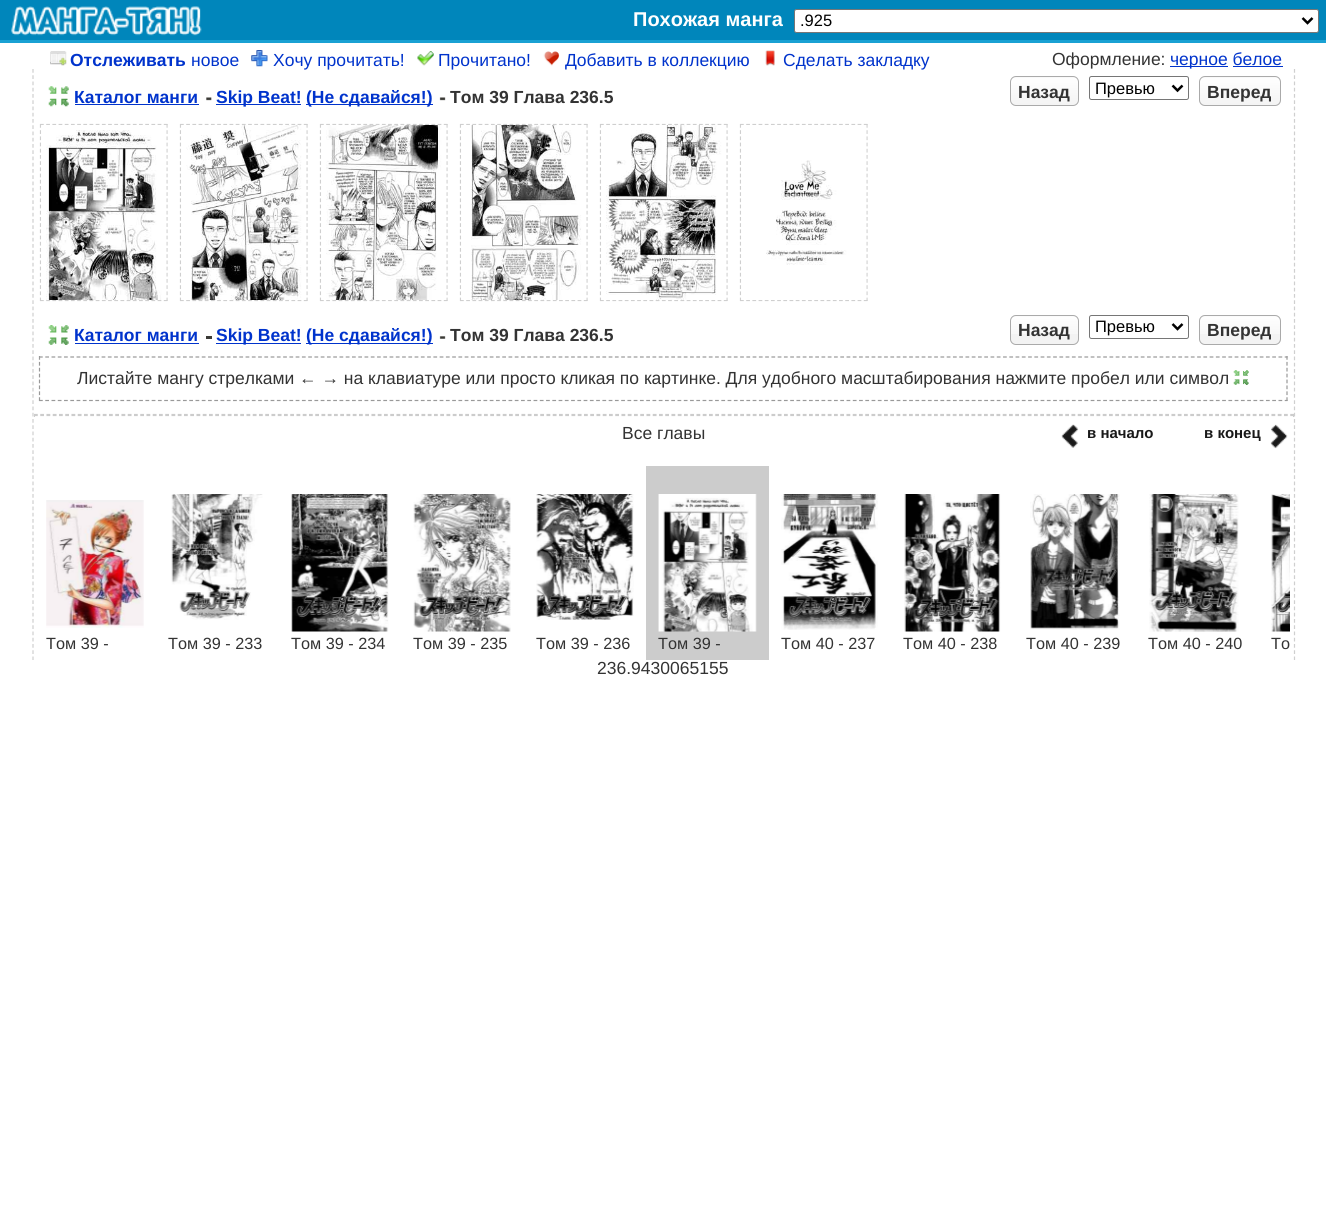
#include <cairo/cairo.h>
#include <math.h>
#include <stddef.h>

static cairo_t *cr;

static void use_color(int r, int g, int b) {
  cairo_set_source_rgb(cr, r / 255.0, g / 255.0, b / 255.0);
}

static void text(double x, double y, const char *s, const char *family, double size, int italic, int bold, int r, int g, int b) {
  cairo_select_font_face(cr, family, italic ? CAIRO_FONT_SLANT_ITALIC : CAIRO_FONT_SLANT_NORMAL,
    bold ? CAIRO_FONT_WEIGHT_BOLD : CAIRO_FONT_WEIGHT_NORMAL);
  cairo_set_font_size(cr, size);
  use_color(r, g, b);
  cairo_move_to(cr, x, y);
  cairo_show_text(cr, s);
}

static void box(double x, double y, double w, double h, int r, int g, int b) {
  use_color(r, g, b);
  cairo_rectangle(cr, x, y, w, h);
  cairo_fill(cr);
}

static void round_rect(double x, double y, double w, double h, double r) {
  cairo_new_sub_path(cr);
  cairo_arc(cr, x + w - r, y + h - r, r, 0, M_PI / 2);
  cairo_arc(cr, x + r, y + h - r, r, M_PI / 2, M_PI);
  cairo_arc(cr, x + r, y + r, r, M_PI, 1.5 * M_PI);
  cairo_arc(cr, x + w - r, y + r, r, 1.5 * M_PI, 2 * M_PI);
  cairo_close_path(cr);
}

static void picture(const char *path, double x, double y, double w, double h) {
  cairo_surface_t *image = cairo_image_surface_create_from_png(path);
  cairo_save(cr);
  cairo_set_source_surface(cr, image, x, y);
  cairo_rectangle(cr, x, y, w, h);
  cairo_fill(cr);
  cairo_restore(cr);
  cairo_surface_destroy(image);
}

static void draw(void) {
  use_color(255, 255, 255);
  cairo_paint(cr);
  box(0, 0, 1326, 40, 0, 134, 187);
  box(0, 40, 1326, 3, 25, 161, 211);
  picture("img_01.png", 11, 6, 191, 30);
  use_color(255, 255, 255);
  round_rect(794.5, 9.5, 524, 23, 2);
  cairo_fill_preserve(cr);
  use_color(118, 118, 118);
  cairo_set_line_width(cr, 1);
  cairo_stroke(cr);
  cairo_new_path(cr);
  cairo_move_to(cr, 1302.5, 18);
  cairo_line_to(cr, 1307.5, 23);
  cairo_line_to(cr, 1312.5, 18);
  use_color(0, 0, 0);
  cairo_set_line_width(cr, 2.5);
  cairo_stroke(cr);
  picture("img_02.png", 50, 51, 17, 15);
  picture("img_03.png", 251, 50, 17, 17);
  picture("img_04.png", 417, 51, 17, 15);
  picture("img_05.png", 543, 51, 17, 15);
  picture("img_06.png", 765, 50, 10, 16);
  box(1170, 66, 58, 1, 0, 51, 204);
  box(1233, 66, 50, 1, 0, 51, 204);
  cairo_new_path(cr);
  cairo_move_to(cr, 1294.5, 69);
  cairo_line_to(cr, 1294.5, 660);
  use_color(207, 207, 207);
  cairo_set_line_width(cr, 1.2);
  cairo_set_dash(cr, (double[]){3.75, 2.5}, 2, 0);
  cairo_stroke(cr);
  cairo_new_path(cr);
  cairo_move_to(cr, 33, 69);
  cairo_line_to(cr, 33, 660);
  cairo_stroke(cr);
  picture("img_07.png", 48, 86, 21, 21);
  box(75, 104, 124, 1, 0, 51, 204);
  picture("img_08.png", 206, 97, 6, 4);
  box(216, 104, 85, 1, 0, 51, 204);
  box(306, 104, 127, 1, 0, 51, 204);
  picture("img_09.png", 439, 97, 7, 4);
  picture("img_10.png", 1010, 77, 69, 29);
  round_rect(1010.5, 76.5, 68, 29, 5.5);
  use_color(170, 170, 170);
  cairo_set_line_width(cr, 1);
  cairo_set_dash(cr, NULL, 0, 0);
  cairo_stroke(cr);
  round_rect(1089.5, 76.5, 99, 23, 2);
  use_color(118, 118, 118);
  cairo_stroke(cr);
  cairo_new_path(cr);
  cairo_move_to(cr, 1172.5, 85.5);
  cairo_line_to(cr, 1177.5, 90.5);
  cairo_line_to(cr, 1182.5, 85.5);
  use_color(0, 0, 0);
  cairo_set_line_width(cr, 2.5);
  cairo_stroke(cr);
  picture("img_11.png", 1199, 77, 82, 29);
  round_rect(1199.5, 76.5, 81, 29, 5.5);
  use_color(170, 170, 170);
  cairo_set_line_width(cr, 1);
  cairo_stroke(cr);
  cairo_new_path(cr);
  cairo_move_to(cr, 40, 124.5);
  cairo_line_to(cr, 167.5, 124.5);
  use_color(207, 207, 207);
  cairo_set_line_width(cr, 1.2);
  cairo_set_dash(cr, (double[]){3.75, 2.44}, 2, 0);
  cairo_stroke(cr);
  cairo_new_path(cr);
  cairo_move_to(cr, 180, 124.5);
  cairo_line_to(cr, 307.5, 124.5);
  cairo_stroke(cr);
  cairo_new_path(cr);
  cairo_move_to(cr, 320, 124.5);
  cairo_line_to(cr, 447.5, 124.5);
  cairo_stroke(cr);
  cairo_new_path(cr);
  cairo_move_to(cr, 460, 124.5);
  cairo_line_to(cr, 587.5, 124.5);
  cairo_stroke(cr);
  cairo_new_path(cr);
  cairo_move_to(cr, 600, 124.5);
  cairo_line_to(cr, 727.5, 124.5);
  cairo_stroke(cr);
  cairo_new_path(cr);
  cairo_move_to(cr, 740, 124.5);
  cairo_line_to(cr, 867.5, 124.5);
  cairo_stroke(cr);
  cairo_new_path(cr);
  cairo_move_to(cr, 167, 124);
  cairo_line_to(cr, 167, 301);
  cairo_set_dash(cr, (double[]){3.75, 2.45}, 2, 0);
  cairo_stroke(cr);
  cairo_new_path(cr);
  cairo_move_to(cr, 40, 300.5);
  cairo_line_to(cr, 167.5, 300.5);
  cairo_set_dash(cr, (double[]){3.75, 2.44}, 2, 0);
  cairo_stroke(cr);
  cairo_new_path(cr);
  cairo_move_to(cr, 40.5, 124);
  cairo_line_to(cr, 40.5, 301);
  cairo_set_dash(cr, (double[]){3.75, 2.45}, 2, 0);
  cairo_stroke(cr);
  cairo_new_path(cr);
  cairo_move_to(cr, 307, 124);
  cairo_line_to(cr, 307, 301);
  cairo_stroke(cr);
  cairo_new_path(cr);
  cairo_move_to(cr, 180, 300.5);
  cairo_line_to(cr, 307.5, 300.5);
  cairo_set_dash(cr, (double[]){3.75, 2.44}, 2, 0);
  cairo_stroke(cr);
  cairo_new_path(cr);
  cairo_move_to(cr, 180.5, 124);
  cairo_line_to(cr, 180.5, 301);
  cairo_set_dash(cr, (double[]){3.75, 2.45}, 2, 0);
  cairo_stroke(cr);
  cairo_new_path(cr);
  cairo_move_to(cr, 447, 124);
  cairo_line_to(cr, 447, 301);
  cairo_stroke(cr);
  cairo_new_path(cr);
  cairo_move_to(cr, 320, 300.5);
  cairo_line_to(cr, 447.5, 300.5);
  cairo_set_dash(cr, (double[]){3.75, 2.44}, 2, 0);
  cairo_stroke(cr);
  cairo_new_path(cr);
  cairo_move_to(cr, 320.5, 124);
  cairo_line_to(cr, 320.5, 301);
  cairo_set_dash(cr, (double[]){3.75, 2.45}, 2, 0);
  cairo_stroke(cr);
  cairo_new_path(cr);
  cairo_move_to(cr, 587, 124);
  cairo_line_to(cr, 587, 301);
  cairo_stroke(cr);
  cairo_new_path(cr);
  cairo_move_to(cr, 460, 300.5);
  cairo_line_to(cr, 587.5, 300.5);
  cairo_set_dash(cr, (double[]){3.75, 2.44}, 2, 0);
  cairo_stroke(cr);
  cairo_new_path(cr);
  cairo_move_to(cr, 460.5, 124);
  cairo_line_to(cr, 460.5, 301);
  cairo_set_dash(cr, (double[]){3.75, 2.45}, 2, 0);
  cairo_stroke(cr);
  cairo_new_path(cr);
  cairo_move_to(cr, 727, 124);
  cairo_line_to(cr, 727, 301);
  cairo_stroke(cr);
  cairo_new_path(cr);
  cairo_move_to(cr, 600, 300.5);
  cairo_line_to(cr, 727.5, 300.5);
  cairo_set_dash(cr, (double[]){3.75, 2.44}, 2, 0);
  cairo_stroke(cr);
  cairo_new_path(cr);
  cairo_move_to(cr, 600.5, 124);
  cairo_line_to(cr, 600.5, 301);
  cairo_set_dash(cr, (double[]){3.75, 2.45}, 2, 0);
  cairo_stroke(cr);
  cairo_new_path(cr);
  cairo_move_to(cr, 867, 124);
  cairo_line_to(cr, 867, 301);
  cairo_stroke(cr);
  cairo_new_path(cr);
  cairo_move_to(cr, 740, 300.5);
  cairo_line_to(cr, 867.5, 300.5);
  cairo_set_dash(cr, (double[]){3.75, 2.44}, 2, 0);
  cairo_stroke(cr);
  cairo_new_path(cr);
  cairo_move_to(cr, 740.5, 124);
  cairo_line_to(cr, 740.5, 301);
  cairo_set_dash(cr, (double[]){3.75, 2.45}, 2, 0);
  cairo_stroke(cr);
  picture("img_12.png", 41, 125, 126, 175);
  picture("img_13.png", 181, 125, 126, 175);
  picture("img_14.png", 321, 125, 126, 175);
  picture("img_15.png", 461, 125, 126, 175);
  picture("img_16.png", 601, 125, 126, 175);
  picture("img_17.png", 741, 125, 126, 175);
  picture("img_18.png", 48, 325, 21, 20);
  box(206, 336, 6, 3, 59, 58, 54);
  box(75, 343, 124, 1, 0, 51, 204);
  box(216, 343, 85, 1, 0, 51, 204);
  box(306, 343, 127, 1, 0, 51, 204);
  picture("img_19.png", 439, 336, 7, 3);
  use_color(243, 243, 243);
  round_rect(1010, 315, 69, 30, 6);
  cairo_fill(cr);
  picture("img_20.png", 1010, 316, 69, 18);
  round_rect(1010.5, 315.5, 68, 29, 5.5);
  use_color(170, 170, 170);
  cairo_set_line_width(cr, 1);
  cairo_set_dash(cr, NULL, 0, 0);
  cairo_stroke(cr);
  round_rect(1089.5, 315.5, 99, 23, 2);
  use_color(118, 118, 118);
  cairo_stroke(cr);
  cairo_new_path(cr);
  cairo_move_to(cr, 1172.5, 324);
  cairo_line_to(cr, 1177.5, 329);
  cairo_line_to(cr, 1182.5, 324);
  use_color(0, 0, 0);
  cairo_set_line_width(cr, 2.5);
  cairo_stroke(cr);
  use_color(243, 243, 243);
  round_rect(1199, 315, 82, 30, 6);
  cairo_fill(cr);
  picture("img_21.png", 1199, 316, 82, 18);
  round_rect(1199.5, 315.5, 81, 29, 5.5);
  use_color(170, 170, 170);
  cairo_set_line_width(cr, 1);
  cairo_stroke(cr);
  cairo_new_path(cr);
  cairo_move_to(cr, 39, 357);
  cairo_line_to(cr, 1287.5, 357);
  use_color(153, 153, 153);
  cairo_set_line_width(cr, 1.2);
  cairo_set_dash(cr, (double[]){3.75, 2.51}, 2, 0);
  cairo_stroke(cr);
  cairo_new_path(cr);
  cairo_move_to(cr, 1287, 356);
  cairo_line_to(cr, 1287, 401);
  cairo_set_dash(cr, (double[]){3.75, 2.14}, 2, 0);
  cairo_stroke(cr);
  cairo_new_path(cr);
  cairo_move_to(cr, 39, 400.5);
  cairo_line_to(cr, 1287.5, 400.5);
  cairo_set_dash(cr, (double[]){3.75, 2.51}, 2, 0);
  cairo_stroke(cr);
  cairo_new_path(cr);
  cairo_move_to(cr, 39.5, 356);
  cairo_line_to(cr, 39.5, 401);
  cairo_set_dash(cr, (double[]){3.75, 2.14}, 2, 0);
  cairo_stroke(cr);
  picture("img_22.png", 1233, 370, 16, 15);
  cairo_new_path(cr);
  cairo_move_to(cr, 34, 414.5);
  cairo_line_to(cr, 1294, 414.5);
  use_color(204, 204, 204);
  cairo_set_dash(cr, (double[]){3.75, 2.5}, 2, 0);
  cairo_stroke(cr);
  box(1293, 414, 1, 3, 204, 204, 204);
  cairo_new_path(cr);
  cairo_move_to(cr, 34, 415.5);
  cairo_line_to(cr, 1294, 415.5);
  cairo_stroke(cr);
  box(34, 414, 1, 3, 204, 204, 204);
  picture("img_23.png", 1061, 424, 18, 24);
  picture("img_24.png", 1270, 424, 18, 25);
  picture("img_25.png", 46, 500, 98, 128);
  picture("img_26.png", 171, 494, 92, 126);
  picture("img_27.png", 291, 494, 98, 138);
  picture("img_28.png", 413, 494, 98, 138);
  picture("img_29.png", 536, 494, 98, 126);
  box(646, 466, 123, 194, 204, 204, 204);
  picture("img_30.png", 658, 494, 99, 138);
  picture("img_31.png", 781, 494, 97, 136);
  picture("img_32.png", 904, 494, 97, 138);
  picture("img_33.png", 1030, 494, 90, 136);
  picture("img_34.png", 1149, 494, 90, 138);
  picture("img_35.png", 1271, 494, 19, 138);
  text(633, 26, "Похожая манга", "Liberation Sans", 20, 0, 1, 255, 255, 255);
  text(800, 26, ".925", "Liberation Sans", 16.5, 0, 0, 0, 0, 0);
  text(70, 66, "Отслеживать", "Liberation Sans", 17.5, 0, 1, 0, 51, 204);
  text(191, 66, "новое", "Liberation Sans", 17.5, 0, 0, 0, 51, 204);
  text(273, 66, "Хочу прочитать!", "Liberation Sans", 17.5, 0, 0, 0, 51, 204);
  text(438, 66, "Прочитано!", "Liberation Sans", 17.5, 0, 0, 0, 51, 204);
  text(565, 66, "Добавить в коллекцию", "Liberation Sans", 17.5, 0, 0, 0, 51, 204);
  text(783, 66, "Сделать закладку", "Liberation Sans", 17.5, 0, 0, 0, 51, 204);
  text(1052, 65, "Оформление:", "Liberation Sans", 17.5, 0, 0, 51, 51, 51);
  text(1170, 65, "черное белое", "Liberation Sans", 17.5, 0, 0, 0, 51, 204);
  text(74, 103, "Каталог манги", "Liberation Sans", 17.5, 0, 1, 0, 51, 204);
  text(216, 103, "Skip Beat!", "Liberation Sans", 17.5, 0, 1, 0, 51, 204);
  text(306, 103, "(Не сдавайся!)", "Liberation Sans", 17.5, 0, 1, 0, 51, 204);
  text(450, 103, "Том 39 Глава 236.5", "Liberation Sans", 17.5, 0, 1, 51, 51, 51);
  text(1018, 98, "Назад", "Liberation Sans", 17.5, 0, 1, 51, 51, 51);
  text(1095, 94, "Превью", "Liberation Sans", 16.5, 0, 0, 0, 0, 0);
  text(1207, 98, "Вперед", "Liberation Sans", 17.5, 0, 1, 51, 51, 51);
  text(74, 341, "Каталог манги", "Liberation Sans", 17.5, 0, 1, 0, 51, 204);
  text(216, 341, "Skip Beat!", "Liberation Sans", 17.5, 0, 1, 0, 51, 204);
  text(306, 341, "(Не сдавайся!)", "Liberation Sans", 17.5, 0, 1, 0, 51, 204);
  text(450, 341, "Том 39 Глава 236.5", "Liberation Sans", 17.5, 0, 1, 51, 51, 51);
  text(1018, 336, "Назад", "Liberation Sans", 17.5, 0, 1, 51, 51, 51);
  text(1095, 332, "Превью", "Liberation Sans", 16.5, 0, 0, 0, 0, 0);
  text(1207, 336, "Вперед", "Liberation Sans", 17.5, 0, 1, 51, 51, 51);
  text(77, 384, "Листайте мангу стрелками ← → на клавиатуре или просто кликая по картинке. Для удобного масштабирования нажмите пробел или символ", "Liberation Sans", 17.5, 0, 0, 51, 51, 51);
  text(622, 439, "Все главы", "Liberation Sans", 17.5, 0, 0, 51, 51, 51);
  text(1087, 438, "в начало", "Liberation Sans", 15, 0, 1, 25, 25, 25);
  text(1204, 438, "в конец", "Liberation Sans", 15, 0, 1, 25, 25, 25);
  text(46, 649, "Том 39 -", "Liberation Sans", 16.25, 0, 0, 51, 51, 51);
  text(168, 649, "Том 39 - 233", "Liberation Sans", 16.25, 0, 0, 51, 51, 51);
  text(291, 649, "Том 39 - 234", "Liberation Sans", 16.25, 0, 0, 51, 51, 51);
  text(413, 649, "Том 39 - 235", "Liberation Sans", 16.25, 0, 0, 51, 51, 51);
  text(536, 649, "Том 39 - 236", "Liberation Sans", 16.25, 0, 0, 51, 51, 51);
  text(658, 649, "Том 39 -", "Liberation Sans", 16.25, 0, 0, 51, 51, 51);
  text(781, 649, "Том 40 - 237", "Liberation Sans", 16.25, 0, 0, 51, 51, 51);
  text(903, 649, "Том 40 - 238", "Liberation Sans", 16.25, 0, 0, 51, 51, 51);
  text(1026, 649, "Том 40 - 239", "Liberation Sans", 16.25, 0, 0, 51, 51, 51);
  text(1148, 649, "Том 40 - 240", "Liberation Sans", 16.25, 0, 0, 51, 51, 51);
  text(1271, 649, "То", "Liberation Sans", 16.25, 0, 0, 51, 51, 51);
  text(597, 674, "236.9430065155", "Liberation Sans", 17.5, 0, 0, 51, 51, 51);
}

int main(void) {
  cairo_surface_t *surface = cairo_image_surface_create(CAIRO_FORMAT_RGB24, 1326, 1221);
  cr = cairo_create(surface);
  cairo_font_options_t *options = cairo_font_options_create();
  cairo_font_options_set_hint_metrics(options, CAIRO_HINT_METRICS_OFF);
  cairo_font_options_set_hint_style(options, CAIRO_HINT_STYLE_NONE);
  cairo_set_font_options(cr, options);
  cairo_set_miter_limit(cr, 4);
  draw();
  cairo_surface_write_to_png(surface, "out.png");
  cairo_font_options_destroy(options);
  cairo_destroy(cr);
  cairo_surface_destroy(surface);
  return 0;
}
